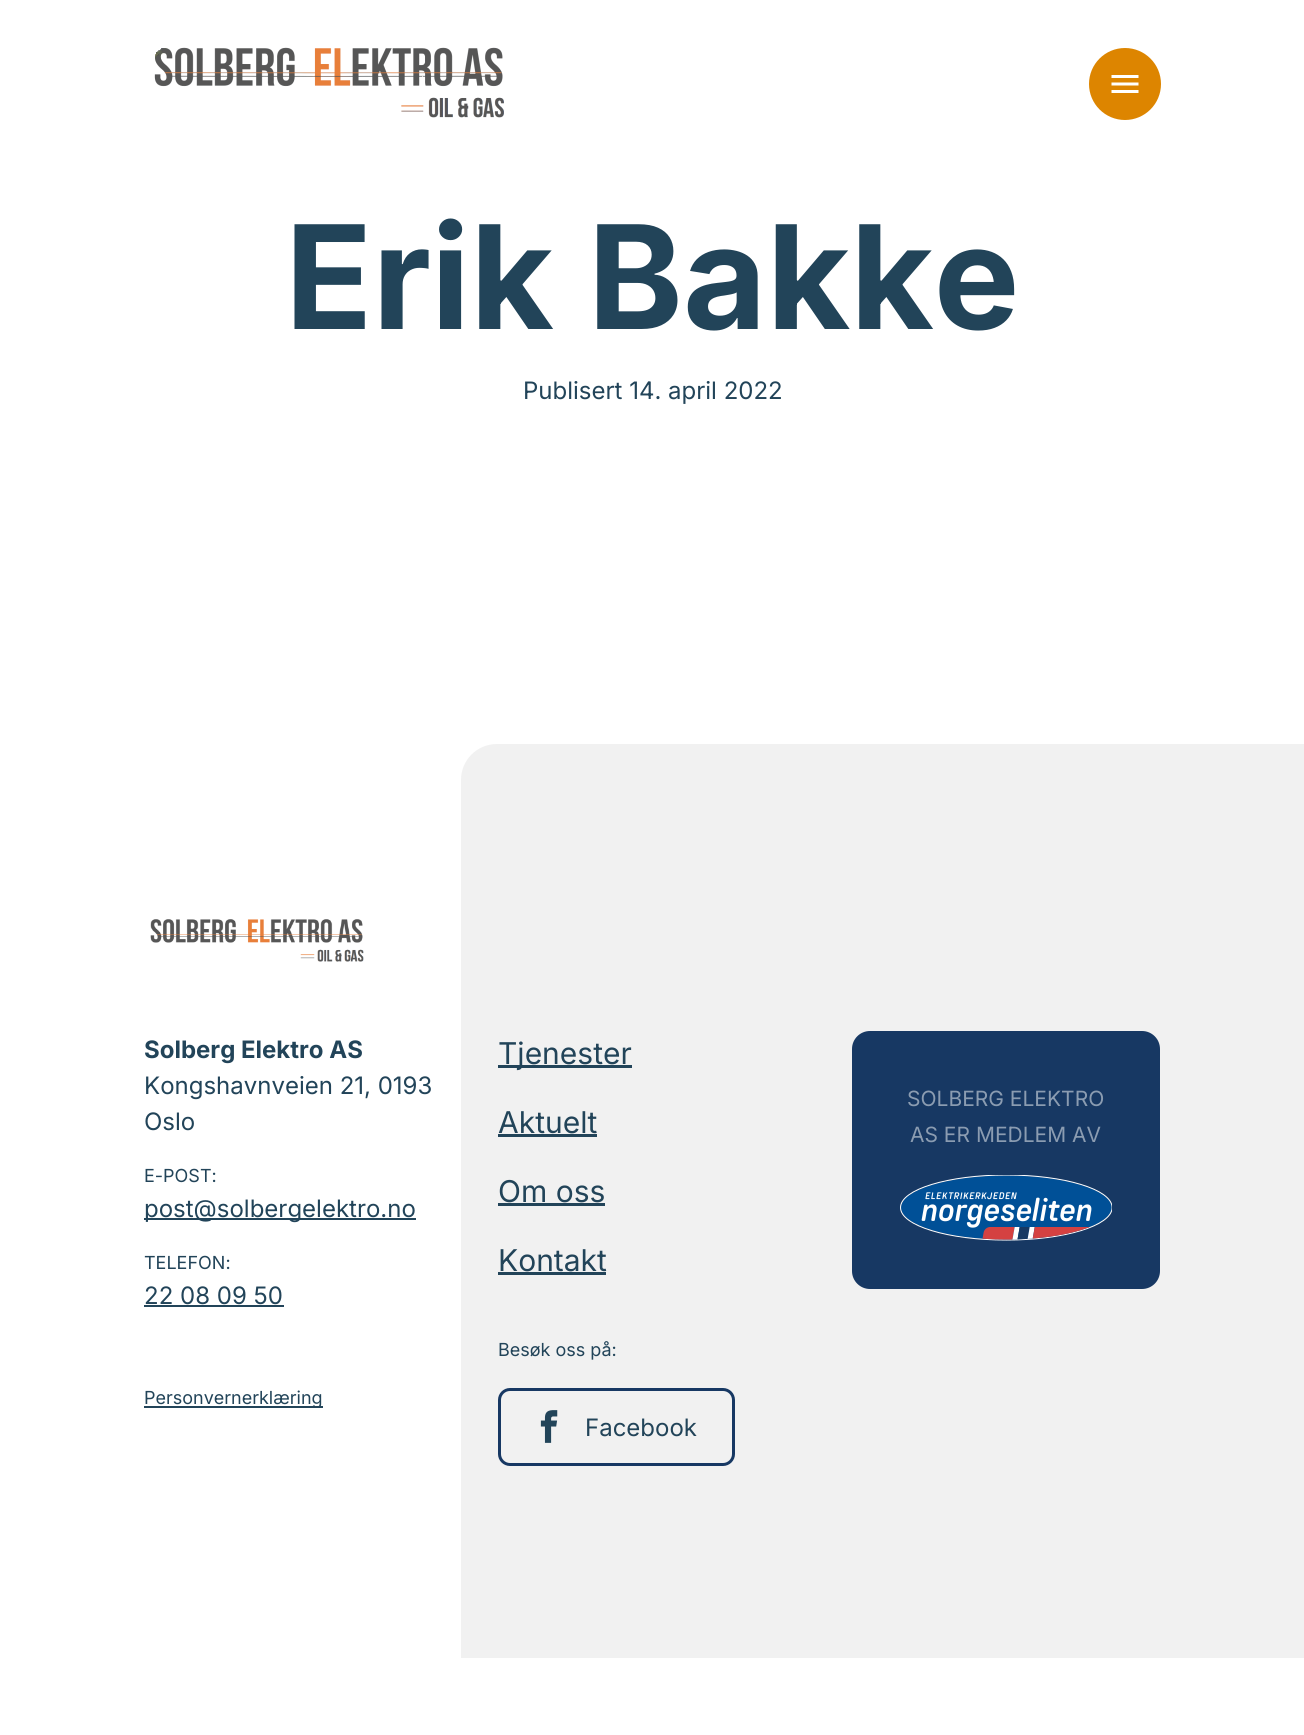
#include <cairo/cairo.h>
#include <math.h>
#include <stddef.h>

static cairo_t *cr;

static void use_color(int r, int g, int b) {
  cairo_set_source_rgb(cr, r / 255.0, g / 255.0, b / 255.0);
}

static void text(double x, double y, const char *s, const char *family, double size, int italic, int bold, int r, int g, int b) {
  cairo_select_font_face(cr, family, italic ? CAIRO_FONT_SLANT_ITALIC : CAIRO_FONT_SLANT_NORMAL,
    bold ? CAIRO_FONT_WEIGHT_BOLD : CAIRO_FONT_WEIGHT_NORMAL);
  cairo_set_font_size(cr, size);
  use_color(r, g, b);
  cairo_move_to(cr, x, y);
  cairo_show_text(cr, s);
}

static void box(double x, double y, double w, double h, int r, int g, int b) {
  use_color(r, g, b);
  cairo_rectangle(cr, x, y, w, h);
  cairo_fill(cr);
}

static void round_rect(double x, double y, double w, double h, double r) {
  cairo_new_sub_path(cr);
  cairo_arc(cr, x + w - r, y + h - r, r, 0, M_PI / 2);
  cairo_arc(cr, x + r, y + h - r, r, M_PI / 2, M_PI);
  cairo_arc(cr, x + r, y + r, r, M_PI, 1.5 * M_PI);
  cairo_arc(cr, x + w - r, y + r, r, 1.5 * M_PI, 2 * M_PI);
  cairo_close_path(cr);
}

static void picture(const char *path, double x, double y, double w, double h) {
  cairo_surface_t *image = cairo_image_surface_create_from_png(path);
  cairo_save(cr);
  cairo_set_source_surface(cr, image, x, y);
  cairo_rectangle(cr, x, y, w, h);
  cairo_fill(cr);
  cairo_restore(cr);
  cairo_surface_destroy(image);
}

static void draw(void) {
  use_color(255, 255, 255);
  cairo_paint(cr);
  picture("img_01.png", 154, 47, 350, 71);
  use_color(221, 133, 0);
  cairo_arc(cr, 1125, 84, 36, 0, 2 * M_PI);
  cairo_fill(cr);
  picture("img_02.png", 1111, 75, 28, 18);
  picture("img_03.png", 150, 919, 214, 43);
  use_color(241, 241, 241);
  cairo_new_path(cr);
  cairo_move_to(cr, 497, 744);
  cairo_line_to(cr, 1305, 744);
  cairo_line_to(cr, 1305, 1658);
  cairo_line_to(cr, 461, 1658);
  cairo_line_to(cr, 461, 780);
  cairo_curve_to(cr, 461, 760, 477, 744, 497, 744);
  cairo_close_path(cr);
  cairo_fill(cr);
  box(144, 1218, 272, 2, 34, 68, 89);
  box(144, 1305, 140, 2, 34, 68, 89);
  box(498, 1065, 134, 3, 34, 68, 89);
  box(498, 1134, 99, 3, 34, 68, 89);
  box(498, 1203, 107, 3, 34, 68, 89);
  box(498, 1272, 108, 3, 34, 68, 89);
  use_color(23, 56, 99);
  round_rect(852, 1031, 308, 258, 18);
  cairo_fill(cr);
  picture("img_04.png", 900, 1175, 212, 66);
  box(144, 1406, 179, 2, 34, 68, 89);
  round_rect(499.5, 1389.5, 234, 75, 10.5);
  use_color(23, 56, 99);
  cairo_set_line_width(cr, 3);
  cairo_stroke(cr);
  picture("img_05.png", 540, 1410, 18, 33);
  text(285, 329, "Erik Bakke", "Inter", 144, 0, 1, 34, 68, 89);
  text(523, 399, "Publisert 14. april 2022", "Inter", 24, 0, 0, 34, 68, 89);
  text(144, 1058, "Solberg Elektro AS", "Inter", 24, 0, 1, 34, 68, 89);
  text(144, 1094, "Kongshavnveien 21, 0193", "Inter", 24, 0, 0, 34, 68, 89);
  text(144, 1130, "Oslo", "Inter", 24, 0, 0, 34, 68, 89);
  text(144, 1182, "E-POST:", "Inter", 18, 0, 0, 34, 68, 89);
  text(144, 1217, "post@solbergelektro.no", "Inter", 24, 0, 0, 34, 68, 89);
  text(144, 1269, "TELEFON:", "Inter", 18, 0, 0, 34, 68, 89);
  text(144, 1304, "22 08 09 50", "Inter", 24, 0, 0, 34, 68, 89);
  text(498, 1064, "Tjenester", "Inter", 30, 0, 0, 34, 68, 89);
  text(498, 1133, "Aktuelt", "Inter", 30, 0, 0, 34, 68, 89);
  text(498, 1202, "Om oss", "Inter", 30, 0, 0, 34, 68, 89);
  text(498, 1271, "Kontakt", "Inter", 30, 0, 0, 34, 68, 89);
  text(907, 1106, "SOLBERG ELEKTRO", "Inter", 21, 0, 0, 139, 156, 177);
  text(910, 1142, "AS ER MEDLEM AV", "Inter", 21, 0, 0, 139, 156, 177);
  text(144, 1404, "Personvernerklæring", "Inter", 18, 0, 0, 34, 68, 89);
  text(498, 1356, "Besøk oss på:", "Inter", 18, 0, 0, 34, 68, 89);
  text(585, 1436, "Facebook", "Inter", 24, 0, 0, 34, 68, 89);
}

int main(void) {
  cairo_surface_t *surface = cairo_image_surface_create(CAIRO_FORMAT_RGB24, 1304, 1735);
  cr = cairo_create(surface);
  cairo_font_options_t *options = cairo_font_options_create();
  cairo_font_options_set_hint_metrics(options, CAIRO_HINT_METRICS_OFF);
  cairo_font_options_set_hint_style(options, CAIRO_HINT_STYLE_NONE);
  cairo_set_font_options(cr, options);
  cairo_set_miter_limit(cr, 4);
  draw();
  cairo_surface_write_to_png(surface, "out.png");
  cairo_font_options_destroy(options);
  cairo_destroy(cr);
  cairo_surface_destroy(surface);
  return 0;
}
